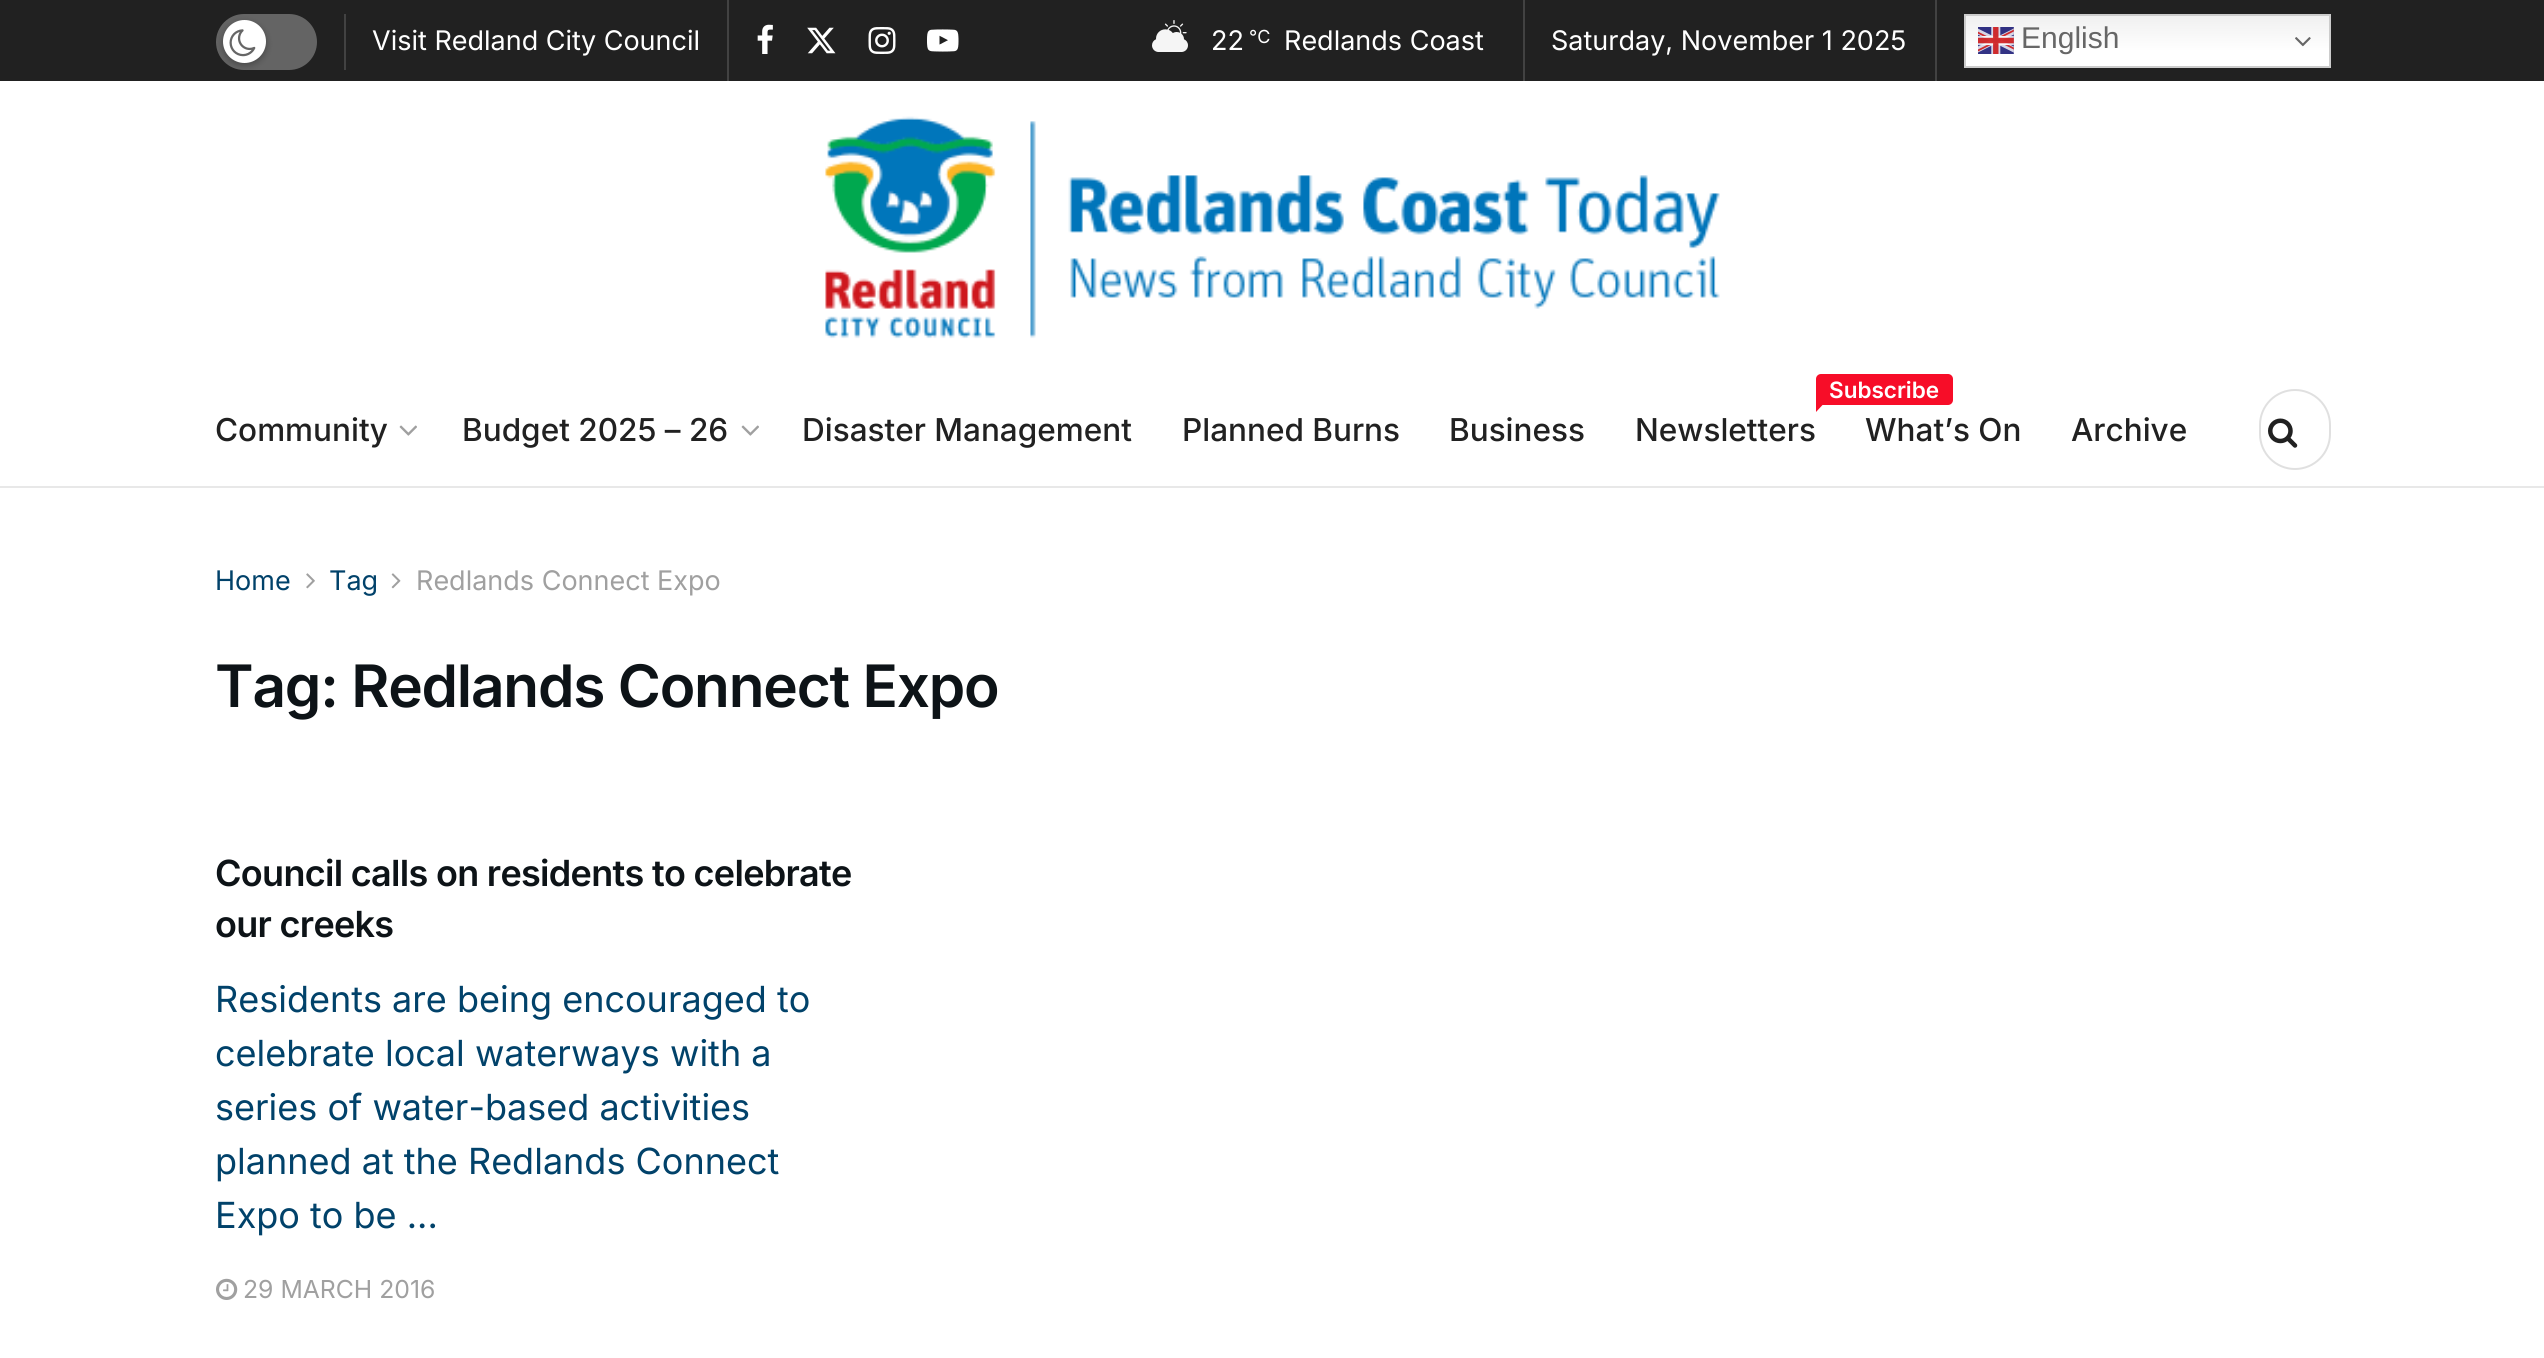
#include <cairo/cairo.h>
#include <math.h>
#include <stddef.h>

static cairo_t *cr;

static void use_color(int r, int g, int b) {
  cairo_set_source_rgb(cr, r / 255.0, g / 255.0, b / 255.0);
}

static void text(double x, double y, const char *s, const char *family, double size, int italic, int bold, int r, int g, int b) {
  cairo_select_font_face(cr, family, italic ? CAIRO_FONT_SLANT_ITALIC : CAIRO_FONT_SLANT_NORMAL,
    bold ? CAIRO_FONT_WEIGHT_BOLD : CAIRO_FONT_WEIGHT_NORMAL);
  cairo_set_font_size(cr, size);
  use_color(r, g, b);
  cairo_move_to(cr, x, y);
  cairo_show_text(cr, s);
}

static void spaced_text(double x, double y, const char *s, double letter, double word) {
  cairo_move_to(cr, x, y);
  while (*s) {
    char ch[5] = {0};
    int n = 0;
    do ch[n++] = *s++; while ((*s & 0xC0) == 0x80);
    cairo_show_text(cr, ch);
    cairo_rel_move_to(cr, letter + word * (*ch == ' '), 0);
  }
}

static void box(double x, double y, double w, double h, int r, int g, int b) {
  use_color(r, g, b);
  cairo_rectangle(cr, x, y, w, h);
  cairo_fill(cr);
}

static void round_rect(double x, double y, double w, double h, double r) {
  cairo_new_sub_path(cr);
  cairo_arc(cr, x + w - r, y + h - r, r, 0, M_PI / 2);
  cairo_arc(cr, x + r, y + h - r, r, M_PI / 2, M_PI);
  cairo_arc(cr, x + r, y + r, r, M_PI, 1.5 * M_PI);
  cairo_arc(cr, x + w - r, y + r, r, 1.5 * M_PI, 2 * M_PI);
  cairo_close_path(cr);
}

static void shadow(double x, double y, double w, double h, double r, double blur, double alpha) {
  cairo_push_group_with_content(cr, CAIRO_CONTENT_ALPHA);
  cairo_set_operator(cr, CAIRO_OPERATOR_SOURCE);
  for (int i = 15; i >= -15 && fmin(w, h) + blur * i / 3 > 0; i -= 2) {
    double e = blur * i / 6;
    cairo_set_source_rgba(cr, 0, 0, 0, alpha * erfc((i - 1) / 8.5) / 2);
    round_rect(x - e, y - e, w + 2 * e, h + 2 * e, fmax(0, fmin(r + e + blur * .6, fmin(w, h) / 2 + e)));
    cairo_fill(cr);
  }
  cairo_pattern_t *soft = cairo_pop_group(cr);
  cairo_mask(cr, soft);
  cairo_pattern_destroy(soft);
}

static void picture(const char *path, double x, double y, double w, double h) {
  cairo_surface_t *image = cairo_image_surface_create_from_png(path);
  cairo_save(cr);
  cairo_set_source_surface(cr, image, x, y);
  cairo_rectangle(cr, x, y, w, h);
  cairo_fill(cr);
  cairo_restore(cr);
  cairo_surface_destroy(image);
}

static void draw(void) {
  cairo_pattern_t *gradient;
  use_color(255, 255, 255);
  cairo_paint(cr);
  box(0, 0, 2544, 81, 33, 33, 33);
  box(344, 14, 2, 56, 66, 66, 66);
  use_color(100, 100, 100);
  round_rect(216, 14, 101, 56, 28);
  cairo_fill(cr);
  use_color(0, 0, 0);
  shadow(223, 23, 43, 42, 21, 3.5, 0.3);
  use_color(255, 255, 255);
  cairo_arc(cr, 244.5, 41.5, 21.5, 0, 2 * M_PI);
  cairo_fill(cr);
  picture("img_01.png", 229, 29, 27, 28);
  box(727, 0, 2, 81, 66, 66, 66);
  picture("img_02.png", 757, 24, 16, 30);
  picture("img_03.png", 807, 27, 29, 27);
  picture("img_04.png", 868, 27, 28, 27);
  picture("img_05.png", 927, 29, 32, 23);
  box(1523, 0, 2, 81, 66, 66, 66);
  picture("img_06.png", 1152, 20, 36, 32);
  box(1935, 0, 2, 81, 66, 66, 66);
  gradient = cairo_pattern_create_linear(2148, 13, 2148, 68);
  cairo_pattern_add_color_stop_rgba(gradient, 0, 0.937, 0.937, 0.937, 1);
  cairo_pattern_add_color_stop_rgba(gradient, 0.7, 1, 1, 1, 1);
  cairo_set_source(cr, gradient);
  cairo_pattern_destroy(gradient);
  cairo_rectangle(cr, 1966, 16, 363, 50);
  cairo_fill(cr);
  cairo_rectangle(cr, 1965, 15, 365, 52);
  use_color(204, 204, 204);
  cairo_stroke(cr);
  picture("img_07.png", 1978, 27, 36, 27);
  picture("img_08.png", 2295, 37, 16, 10);
  picture("img_09.png", 825, 116, 895, 223);
  box(0, 486, 2544, 2, 232, 232, 232);
  picture("img_10.png", 399, 425, 18, 11);
  picture("img_10.png", 741, 425, 18, 11);
  use_color(247, 13, 40);
  round_rect(1816, 374, 137, 31, 5);
  cairo_fill(cr);
  cairo_new_path(cr);
  cairo_move_to(cr, 1816, 412);
  cairo_line_to(cr, 1816, 398);
  cairo_line_to(cr, 1822.5, 405);
  cairo_close_path(cr);
  cairo_fill(cr);
  round_rect(2260, 390, 70, 79, 35);
  use_color(224, 224, 224);
  cairo_stroke(cr);
  picture("img_11.png", 2268, 418, 30, 30);
  picture("img_12.png", 306, 573, 9, 16);
  picture("img_13.png", 391, 573, 10, 16);
  picture("img_14.png", 216, 1278, 22, 22);
  text(372, 50, "Visit Redland City Council", "Inter", 27, 0, 0, 255, 255, 255);
  text(1211, 50, "22", "Inter", 27, 0, 0, 255, 255, 255);
  text(1249, 43, "°C", "Inter", 18, 0, 0, 255, 255, 255);
  text(1284, 50, "Redlands Coast", "Inter", 27, 0, 0, 255, 255, 255);
  text(1551, 50, "Saturday, November 1 2025", "Inter", 27, 0, 0, 255, 255, 255);
  text(2021, 48, "English", "Liberation Sans", 30, 0, 0, 102, 102, 102);
  text(215, 441, "Community", "Inter Medium", 31.5, 0, 0, 33, 33, 33);
  text(462, 441, "Budget 2025 – 26", "Inter Medium", 31.5, 0, 0, 33, 33, 33);
  text(802, 441, "Disaster Management", "Inter Medium", 31.5, 0, 0, 33, 33, 33);
  text(1182, 441, "Planned Burns", "Inter Medium", 31.5, 0, 0, 33, 33, 33);
  text(1449, 441, "Business", "Inter Medium", 31.5, 0, 0, 33, 33, 33);
  text(1829, 398, "Subscribe", "Inter SemiBold", 22.5, 0, 0, 255, 255, 255);
  text(1635, 441, "Newsletters", "Inter Medium", 31.5, 0, 0, 33, 33, 33);
  text(1865, 441, "What’s On", "Inter Medium", 31.5, 0, 0, 33, 33, 33);
  text(2071, 441, "Archive", "Inter Medium", 31.5, 0, 0, 33, 33, 33);
  text(215, 590, "Home", "Inter", 27, 0, 0, 1, 66, 106);
  text(329, 590, "Tag", "Inter", 27, 0, 0, 1, 66, 106);
  text(416, 590, "Redlands Connect Expo", "Inter", 27, 0, 0, 160, 160, 160);
  cairo_select_font_face(cr, "Inter SemiBold", CAIRO_FONT_SLANT_NORMAL, CAIRO_FONT_WEIGHT_NORMAL);
  cairo_set_font_size(cr, 58.5);
  use_color(13, 19, 23);
  spaced_text(215, 707, "Tag: Redlands Connect Expo", -1.2, 0);
  cairo_set_font_size(cr, 36);
  spaced_text(215, 886, "Council calls on residents to celebrate", -0.7, 0);
  spaced_text(215, 937, "our creeks", -0.7, 0);
  text(215, 1012, "Residents are being encouraged to", "Inter", 36, 0, 0, 1, 66, 106);
  text(215, 1066, "celebrate local waterways with a", "Inter", 36, 0, 0, 1, 66, 106);
  text(215, 1120, "series of water-based activities", "Inter", 36, 0, 0, 1, 66, 106);
  text(215, 1174, "planned at the Redlands Connect", "Inter", 36, 0, 0, 1, 66, 106);
  text(215, 1228, "Expo to be ...", "Inter", 36, 0, 0, 1, 66, 106);
  text(243, 1298, "29 MARCH 2016", "Inter", 24.75, 0, 0, 160, 160, 160);
}

int main(void) {
  cairo_surface_t *surface = cairo_image_surface_create(CAIRO_FORMAT_RGB24, 2544, 1358);
  cr = cairo_create(surface);
  cairo_font_options_t *options = cairo_font_options_create();
  cairo_font_options_set_hint_metrics(options, CAIRO_HINT_METRICS_OFF);
  cairo_font_options_set_hint_style(options, CAIRO_HINT_STYLE_NONE);
  cairo_set_font_options(cr, options);
  cairo_set_miter_limit(cr, 4);
  draw();
  cairo_surface_write_to_png(surface, "out.png");
  cairo_font_options_destroy(options);
  cairo_destroy(cr);
  cairo_surface_destroy(surface);
  return 0;
}
